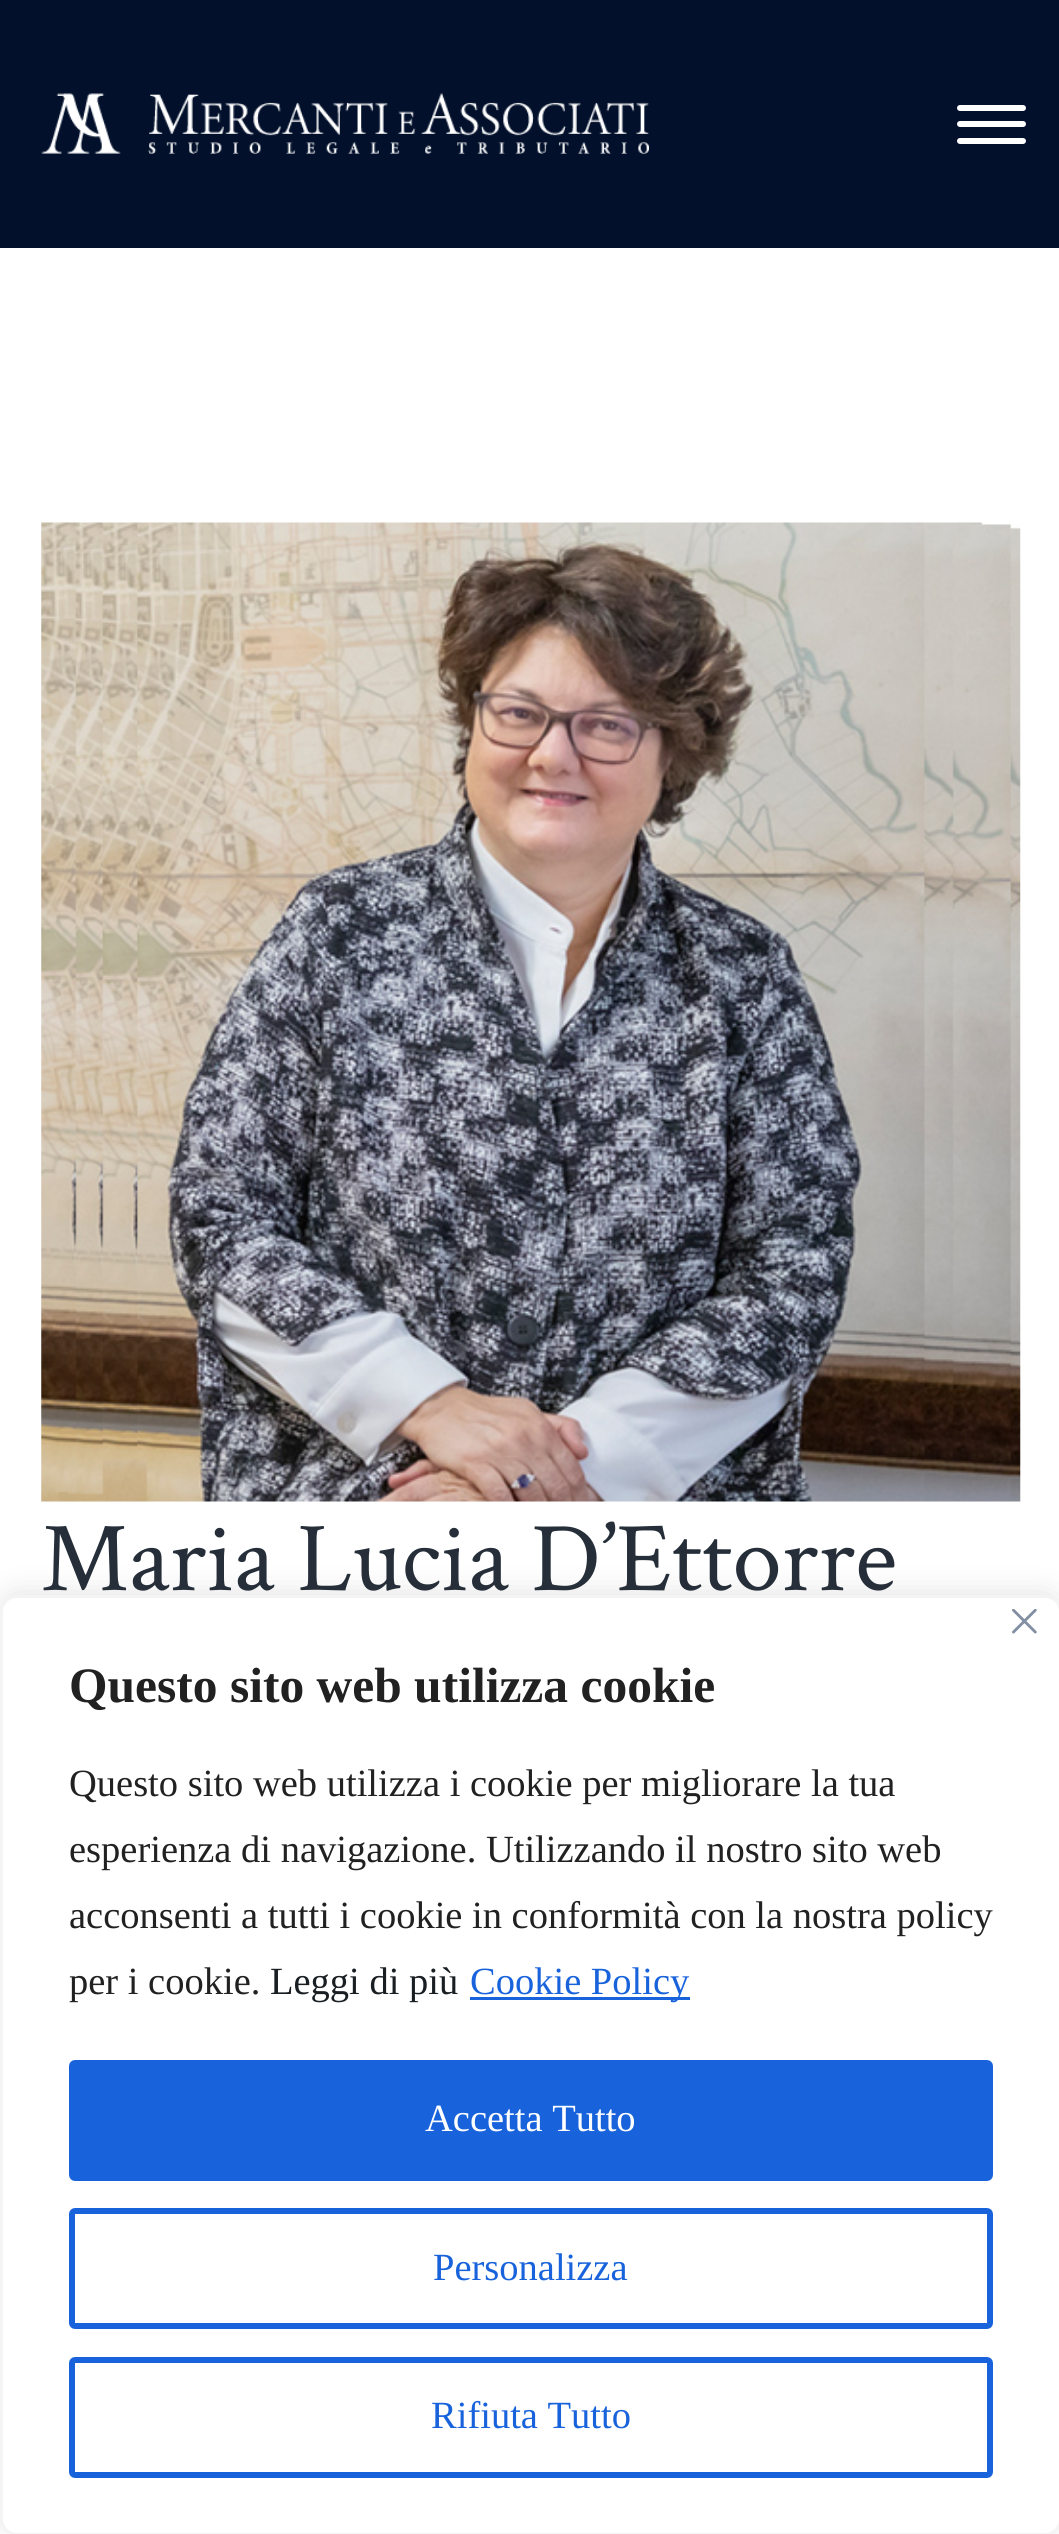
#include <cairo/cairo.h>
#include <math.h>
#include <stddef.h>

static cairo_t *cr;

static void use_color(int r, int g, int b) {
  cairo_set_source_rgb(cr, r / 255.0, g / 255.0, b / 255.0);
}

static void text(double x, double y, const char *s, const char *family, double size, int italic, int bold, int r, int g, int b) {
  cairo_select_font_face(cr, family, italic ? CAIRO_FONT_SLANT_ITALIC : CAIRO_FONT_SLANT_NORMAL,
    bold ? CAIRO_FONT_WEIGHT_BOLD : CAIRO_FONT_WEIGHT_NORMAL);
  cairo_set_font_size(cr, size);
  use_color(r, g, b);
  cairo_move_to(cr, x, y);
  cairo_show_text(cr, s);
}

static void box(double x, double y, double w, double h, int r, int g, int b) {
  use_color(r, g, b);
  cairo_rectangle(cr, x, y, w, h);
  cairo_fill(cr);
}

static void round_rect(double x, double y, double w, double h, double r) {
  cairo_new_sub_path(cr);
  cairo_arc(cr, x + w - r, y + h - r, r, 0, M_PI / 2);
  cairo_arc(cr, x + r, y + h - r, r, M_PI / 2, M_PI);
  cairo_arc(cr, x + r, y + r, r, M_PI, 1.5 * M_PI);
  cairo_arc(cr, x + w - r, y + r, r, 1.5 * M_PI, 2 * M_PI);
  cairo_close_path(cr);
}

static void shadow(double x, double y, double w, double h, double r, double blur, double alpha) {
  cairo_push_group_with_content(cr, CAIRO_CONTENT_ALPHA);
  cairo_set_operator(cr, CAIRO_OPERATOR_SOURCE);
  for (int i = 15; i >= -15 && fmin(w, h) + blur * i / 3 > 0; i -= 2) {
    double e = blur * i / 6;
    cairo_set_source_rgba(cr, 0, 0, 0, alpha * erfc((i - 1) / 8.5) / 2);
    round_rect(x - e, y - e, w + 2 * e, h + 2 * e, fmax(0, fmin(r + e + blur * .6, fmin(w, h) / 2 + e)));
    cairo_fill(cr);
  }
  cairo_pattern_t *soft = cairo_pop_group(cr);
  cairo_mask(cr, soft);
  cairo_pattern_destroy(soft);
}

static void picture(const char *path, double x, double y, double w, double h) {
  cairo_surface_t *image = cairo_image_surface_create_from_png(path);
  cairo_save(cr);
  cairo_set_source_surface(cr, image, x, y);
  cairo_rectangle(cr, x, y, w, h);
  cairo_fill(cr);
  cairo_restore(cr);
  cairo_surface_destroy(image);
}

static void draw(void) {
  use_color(255, 255, 255);
  cairo_paint(cr);
  box(0, 0, 1059, 248, 2, 16, 43);
  picture("img_01.png", 41, 93, 608, 61);
  use_color(255, 255, 255);
  round_rect(957, 105, 69, 6, 3);
  cairo_fill(cr);
  round_rect(957, 121, 69, 6, 3);
  cairo_fill(cr);
  round_rect(957, 138, 69, 6, 3);
  cairo_fill(cr);
  picture("img_02.png", 41, 522, 980, 980);
  use_color(172, 171, 171);
  shadow(0, 1592, 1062, 941, 17, 14, 0.3);
  use_color(255, 255, 255);
  round_rect(1.5, 1596.5, 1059, 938, 15.5);
  cairo_fill_preserve(cr);
  use_color(244, 244, 244);
  cairo_set_line_width(cr, 3);
  cairo_stroke(cr);
  picture("img_03.png", 1012, 1609, 25, 25);
  box(470, 1997, 220, 3, 24, 99, 220);
  round_rect(72, 2063, 918, 115, 3);
  cairo_fill_preserve(cr);
  cairo_set_line_width(cr, 6);
  cairo_stroke(cr);
  round_rect(72, 2211, 918, 115, 3);
  cairo_stroke(cr);
  round_rect(72, 2360, 918, 115, 3);
  cairo_stroke(cr);
  text(41, 1590, "Maria Lucia D’Ettorre", "Crimson Text", 99, 0, 0, 37, 46, 57);
  text(69, 1702, "Questo sito web utilizza cookie", "Liberation Serif", 49.5, 0, 1, 33, 33, 33);
  text(69, 1796, "Questo sito web utilizza i cookie per migliorare la tua", "Liberation Serif", 38.5, 0, 0, 33, 33, 33);
  text(69, 1862, "esperienza di navigazione. Utilizzando il nostro sito web", "Liberation Serif", 38.5, 0, 0, 33, 33, 33);
  text(69, 1928, "acconsenti a tutti i cookie in conformità con la nostra policy", "Liberation Serif", 38.5, 0, 0, 33, 33, 33);
  text(69, 1994, "per i cookie.", "Liberation Serif", 38.5, 0, 0, 33, 33, 33);
  text(270, 1994, "Leggi di più", "Liberation Serif", 38.5, 0, 0, 25, 30, 35);
  text(470, 1994, "Cookie Policy", "Liberation Serif", 38.5, 0, 0, 24, 99, 220);
  text(425, 2131, "Accetta Tutto", "Liberation Serif", 38.5, 0, 0, 255, 255, 255);
  text(433, 2280, "Personalizza", "Liberation Serif", 38.5, 0, 0, 24, 99, 220);
  text(431, 2428, "Rifiuta Tutto", "Liberation Serif", 38.5, 0, 0, 24, 99, 220);
}

int main(void) {
  cairo_surface_t *surface = cairo_image_surface_create(CAIRO_FORMAT_RGB24, 1059, 2534);
  cr = cairo_create(surface);
  cairo_font_options_t *options = cairo_font_options_create();
  cairo_font_options_set_hint_metrics(options, CAIRO_HINT_METRICS_OFF);
  cairo_font_options_set_hint_style(options, CAIRO_HINT_STYLE_NONE);
  cairo_set_font_options(cr, options);
  cairo_set_miter_limit(cr, 4);
  draw();
  cairo_surface_write_to_png(surface, "out.png");
  cairo_font_options_destroy(options);
  cairo_destroy(cr);
  cairo_surface_destroy(surface);
  return 0;
}
